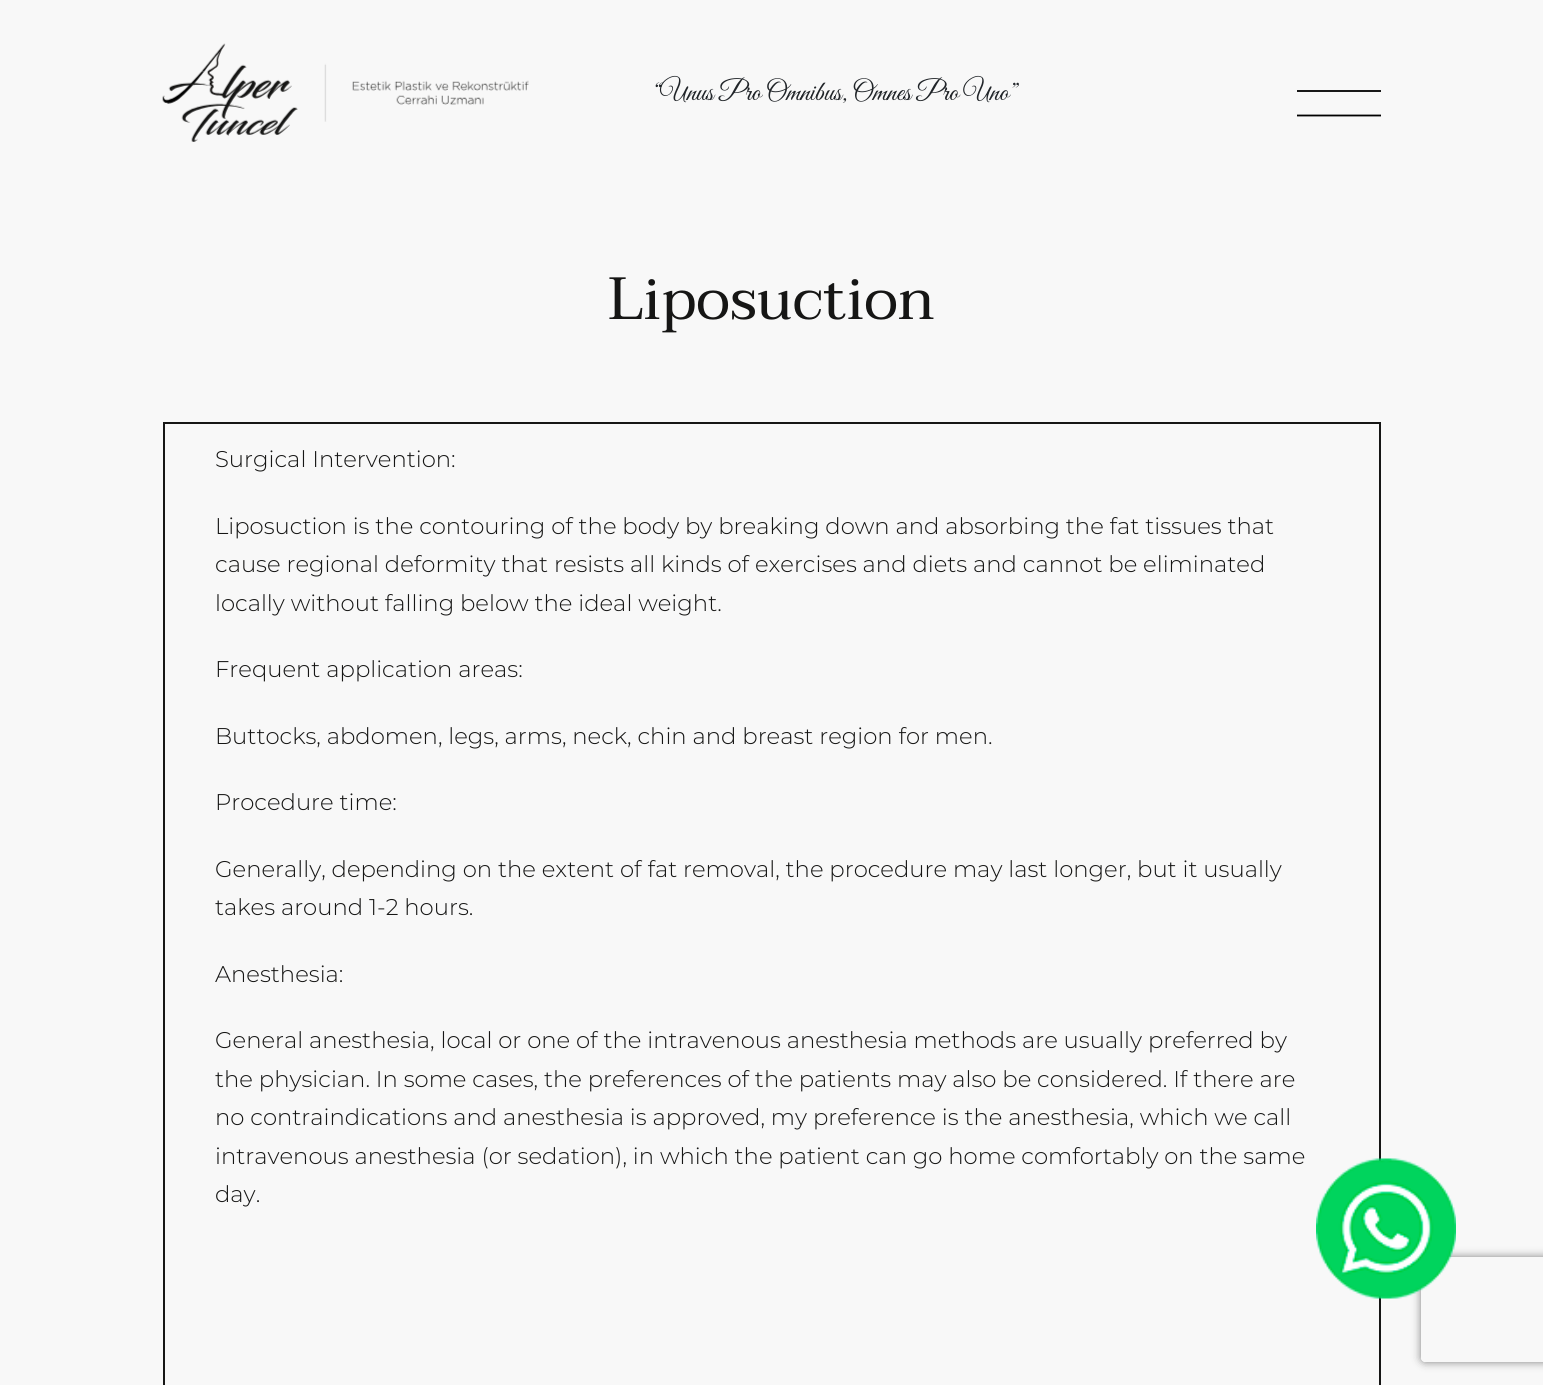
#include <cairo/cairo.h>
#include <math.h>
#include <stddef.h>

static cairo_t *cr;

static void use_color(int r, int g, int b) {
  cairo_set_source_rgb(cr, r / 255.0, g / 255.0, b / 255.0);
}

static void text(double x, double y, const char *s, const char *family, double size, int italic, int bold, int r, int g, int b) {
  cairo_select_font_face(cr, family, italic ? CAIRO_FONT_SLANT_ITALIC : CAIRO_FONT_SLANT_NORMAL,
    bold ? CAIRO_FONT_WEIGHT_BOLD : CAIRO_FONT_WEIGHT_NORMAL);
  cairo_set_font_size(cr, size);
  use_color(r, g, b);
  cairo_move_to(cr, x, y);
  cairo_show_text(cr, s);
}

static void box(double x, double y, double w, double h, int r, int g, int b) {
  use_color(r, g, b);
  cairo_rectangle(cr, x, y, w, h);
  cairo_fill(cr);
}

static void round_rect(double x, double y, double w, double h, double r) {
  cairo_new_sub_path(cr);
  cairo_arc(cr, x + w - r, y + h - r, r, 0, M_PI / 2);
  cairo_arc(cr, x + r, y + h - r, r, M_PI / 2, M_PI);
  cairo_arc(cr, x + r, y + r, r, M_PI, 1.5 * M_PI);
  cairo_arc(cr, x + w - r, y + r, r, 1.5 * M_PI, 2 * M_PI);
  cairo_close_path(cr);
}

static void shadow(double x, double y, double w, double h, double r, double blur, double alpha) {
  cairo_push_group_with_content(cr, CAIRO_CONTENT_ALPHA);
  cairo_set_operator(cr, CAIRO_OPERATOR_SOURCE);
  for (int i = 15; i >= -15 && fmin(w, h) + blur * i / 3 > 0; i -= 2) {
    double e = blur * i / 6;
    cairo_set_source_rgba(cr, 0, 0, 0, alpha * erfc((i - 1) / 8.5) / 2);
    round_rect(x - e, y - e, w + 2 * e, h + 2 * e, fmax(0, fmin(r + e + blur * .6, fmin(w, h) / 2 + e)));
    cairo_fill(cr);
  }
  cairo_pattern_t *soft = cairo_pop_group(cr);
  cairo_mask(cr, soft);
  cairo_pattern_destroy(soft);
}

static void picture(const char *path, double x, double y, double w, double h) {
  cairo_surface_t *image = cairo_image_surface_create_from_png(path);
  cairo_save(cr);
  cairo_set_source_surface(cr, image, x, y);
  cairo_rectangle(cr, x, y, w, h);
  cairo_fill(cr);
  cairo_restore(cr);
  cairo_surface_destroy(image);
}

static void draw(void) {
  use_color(248, 248, 248);
  cairo_paint(cr);
  picture("img_01.png", 162, 43, 367, 99);
  box(1297, 90, 84, 2, 25, 25, 25);
  cairo_new_path(cr);
  cairo_move_to(cr, 1297, 115.5);
  cairo_line_to(cr, 1381, 115.5);
  use_color(0, 0, 0);
  cairo_set_line_width(cr, 1.8);
  cairo_stroke(cr);
  box(163, 422, 2, 963, 22, 22, 21);
  box(1379, 422, 2, 963, 22, 22, 21);
  box(163, 422, 1218, 2, 22, 22, 21);
  cairo_save(cr);
  cairo_set_fill_rule(cr, CAIRO_FILL_RULE_EVEN_ODD);
  cairo_new_path(cr);
  cairo_move_to(cr, 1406, 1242);
  cairo_line_to(cr, 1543, 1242);
  cairo_line_to(cr, 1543, 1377);
  cairo_line_to(cr, 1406, 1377);
  cairo_close_path(cr);
  cairo_move_to(cr, 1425, 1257);
  cairo_line_to(cr, 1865, 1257);
  cairo_curve_to(cr, 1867, 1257, 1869, 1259, 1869, 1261);
  cairo_line_to(cr, 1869, 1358);
  cairo_curve_to(cr, 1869, 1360, 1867, 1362, 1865, 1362);
  cairo_line_to(cr, 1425, 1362);
  cairo_curve_to(cr, 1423, 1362, 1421, 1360, 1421, 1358);
  cairo_line_to(cr, 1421, 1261);
  cairo_curve_to(cr, 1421, 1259, 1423, 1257, 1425, 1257);
  cairo_close_path(cr);
  cairo_clip(cr);
  use_color(128, 128, 128);
  shadow(1421, 1257, 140, 105, 4, 4.5, 1);
  cairo_restore(cr);
  picture("img_02.png", 1316, 1158, 140, 141);
  text(652, 100, "“Unus Pro Omnibus, Omnes Pro Uno”", "Great Vibes", 28, 0, 0, 33, 37, 41);
  text(608, 319, "Liposuction", "Taviraj", 59.5, 0, 0, 22, 22, 21);
  text(215, 467, "Surgical Intervention:", "Montserrat Light", 22.75, 0, 0, 22, 22, 21);
  text(215, 534, "Liposuction is the contouring of the body by breaking down and absorbing the fat tissues that", "Montserrat Light", 22.75, 0, 0, 22, 22, 21);
  text(215, 572, "cause regional deformity that resists all kinds of exercises and diets and cannot be eliminated", "Montserrat Light", 22.75, 0, 0, 22, 22, 21);
  text(215, 611, "locally without falling below the ideal weight.", "Montserrat Light", 22.75, 0, 0, 22, 22, 21);
  text(215, 677, "Frequent application areas:", "Montserrat Light", 22.75, 0, 0, 22, 22, 21);
  text(215, 744, "Buttocks, abdomen, legs, arms, neck, chin and breast region for men.", "Montserrat Light", 22.75, 0, 0, 22, 22, 21);
  text(215, 810, "Procedure time:", "Montserrat Light", 22.75, 0, 0, 22, 22, 21);
  text(215, 877, "Generally, depending on the extent of fat removal, the procedure may last longer, but it usually", "Montserrat Light", 22.75, 0, 0, 22, 22, 21);
  text(215, 915, "takes around 1-2 hours.", "Montserrat Light", 22.75, 0, 0, 22, 22, 21);
  text(215, 982, "Anesthesia:", "Montserrat Light", 22.75, 0, 0, 22, 22, 21);
  text(215, 1048, "General anesthesia, local or one of the intravenous anesthesia methods are usually preferred by", "Montserrat Light", 22.75, 0, 0, 22, 22, 21);
  text(215, 1087, "the physician. In some cases, the preferences of the patients may also be considered. If there are", "Montserrat Light", 22.75, 0, 0, 22, 22, 21);
  text(215, 1125, "no contraindications and anesthesia is approved, my preference is the anesthesia, which we call", "Montserrat Light", 22.75, 0, 0, 22, 22, 21);
  text(215, 1164, "intravenous anesthesia (or sedation), in which the patient can go home comfortably on the same", "Montserrat Light", 22.75, 0, 0, 22, 22, 21);
  text(215, 1202, "day.", "Montserrat Light", 22.75, 0, 0, 22, 22, 21);
}

int main(void) {
  cairo_surface_t *surface = cairo_image_surface_create(CAIRO_FORMAT_RGB24, 1543, 1385);
  cr = cairo_create(surface);
  cairo_font_options_t *options = cairo_font_options_create();
  cairo_font_options_set_hint_metrics(options, CAIRO_HINT_METRICS_OFF);
  cairo_font_options_set_hint_style(options, CAIRO_HINT_STYLE_NONE);
  cairo_set_font_options(cr, options);
  cairo_set_miter_limit(cr, 4);
  draw();
  cairo_surface_write_to_png(surface, "out.png");
  cairo_font_options_destroy(options);
  cairo_destroy(cr);
  cairo_surface_destroy(surface);
  return 0;
}
